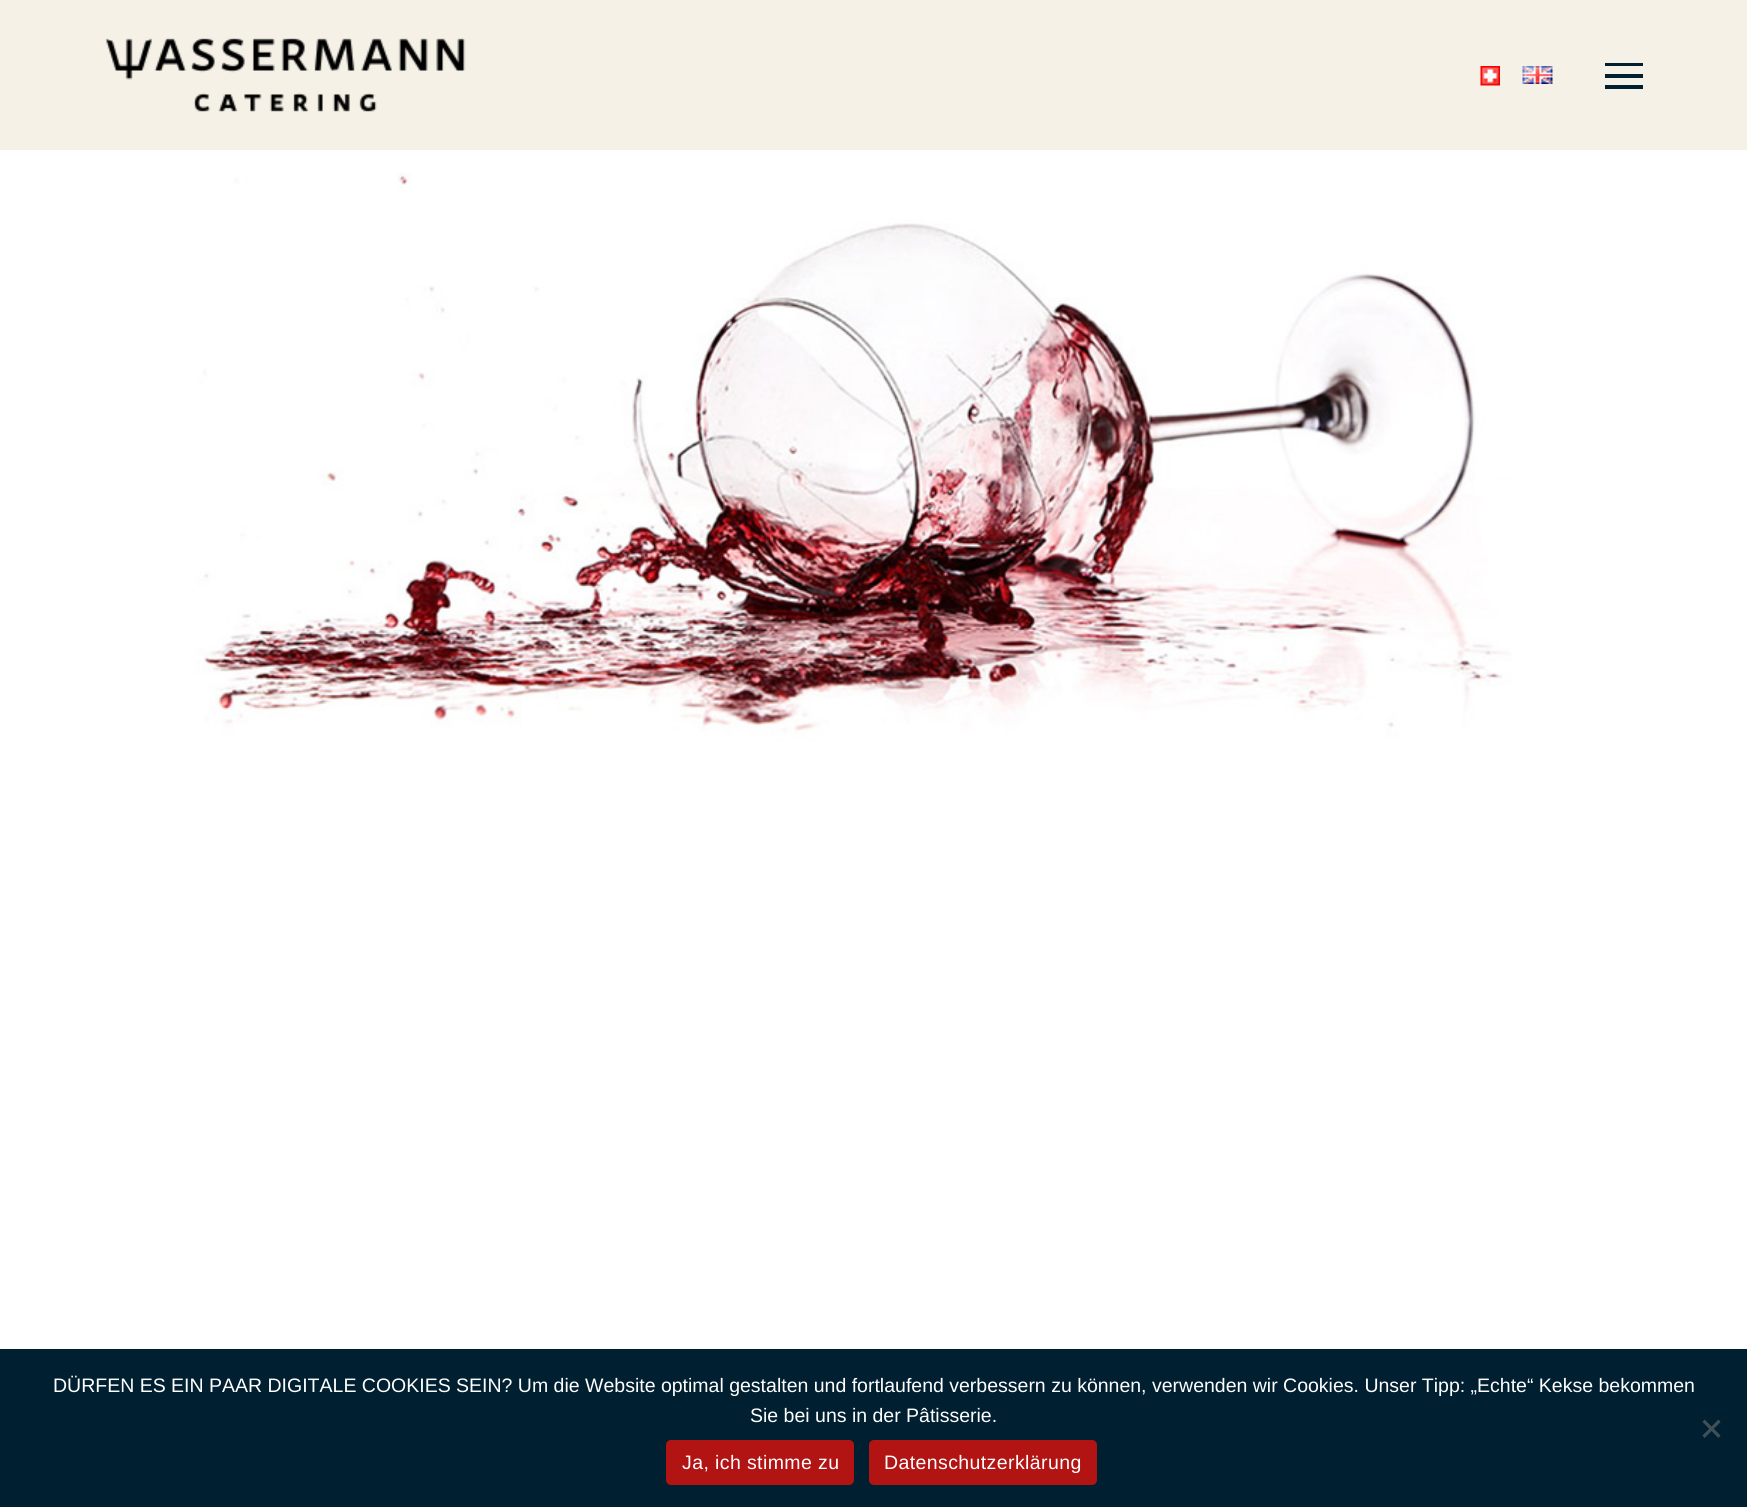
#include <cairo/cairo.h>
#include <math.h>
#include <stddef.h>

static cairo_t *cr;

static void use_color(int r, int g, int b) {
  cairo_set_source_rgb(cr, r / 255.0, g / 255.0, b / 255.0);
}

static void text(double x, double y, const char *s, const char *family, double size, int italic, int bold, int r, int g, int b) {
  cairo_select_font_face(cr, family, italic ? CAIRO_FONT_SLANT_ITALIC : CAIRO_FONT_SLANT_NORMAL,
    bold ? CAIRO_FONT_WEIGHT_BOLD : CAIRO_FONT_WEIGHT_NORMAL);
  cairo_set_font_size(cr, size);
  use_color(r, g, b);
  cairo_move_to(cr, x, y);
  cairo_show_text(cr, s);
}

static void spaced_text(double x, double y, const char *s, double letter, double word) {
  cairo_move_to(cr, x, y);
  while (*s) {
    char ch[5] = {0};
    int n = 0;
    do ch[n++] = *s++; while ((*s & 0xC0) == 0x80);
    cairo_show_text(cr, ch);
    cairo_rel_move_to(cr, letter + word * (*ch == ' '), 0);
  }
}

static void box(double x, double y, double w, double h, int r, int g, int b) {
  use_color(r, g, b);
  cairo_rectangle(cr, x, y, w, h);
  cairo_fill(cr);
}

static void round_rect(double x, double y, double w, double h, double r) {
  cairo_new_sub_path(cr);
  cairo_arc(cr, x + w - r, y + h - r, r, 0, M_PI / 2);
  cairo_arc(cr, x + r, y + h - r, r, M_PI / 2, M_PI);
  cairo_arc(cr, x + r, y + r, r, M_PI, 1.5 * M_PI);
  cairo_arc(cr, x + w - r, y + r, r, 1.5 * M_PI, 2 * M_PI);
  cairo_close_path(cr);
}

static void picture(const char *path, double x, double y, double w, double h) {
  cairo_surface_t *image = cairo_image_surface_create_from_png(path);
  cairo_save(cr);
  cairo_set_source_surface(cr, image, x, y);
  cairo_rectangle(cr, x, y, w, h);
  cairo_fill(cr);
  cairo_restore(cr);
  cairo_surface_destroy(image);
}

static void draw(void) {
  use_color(245, 241, 230);
  cairo_paint(cr);
  picture("img_01.png", 105, 38, 361, 74);
  picture("img_02.png", 1480, 66, 20, 20);
  picture("img_03.png", 1522, 66, 31, 18);
  box(1605, 63, 38, 3, 0, 31, 49);
  box(1605, 74, 38, 4, 0, 31, 49);
  box(1605, 85, 38, 4, 0, 31, 49);
  picture("img_04.png", 0, 150, 1747, 1199);
  box(0, 1349, 1747, 158, 0, 31, 49);
  use_color(64, 80, 89);
  cairo_new_path(cr);
  cairo_move_to(cr, 1718.5, 1419.5);
  cairo_line_to(cr, 1720.5, 1422);
  cairo_line_to(cr, 1704.5, 1438);
  cairo_line_to(cr, 1702.5, 1435.5);
  cairo_close_path(cr);
  cairo_fill(cr);
  cairo_new_path(cr);
  cairo_move_to(cr, 1702.5, 1422);
  cairo_line_to(cr, 1704.5, 1419.5);
  cairo_line_to(cr, 1720.5, 1435.5);
  cairo_line_to(cr, 1718.5, 1438);
  cairo_close_path(cr);
  cairo_fill(cr);
  use_color(178, 19, 19);
  round_rect(666, 1440, 188, 45, 5);
  cairo_fill(cr);
  round_rect(869, 1440, 228, 45, 5);
  cairo_fill(cr);
  text(53, 1392, "DÜRFEN ES EIN PAAR DIGITALE COOKIES SEIN? Um die Website optimal gestalten und fortlaufend verbessern zu können, verwenden wir Cookies. Unser Tipp: „Echte“ Kekse bekommen", "Liberation Sans", 19.5, 0, 0, 255, 255, 255);
  text(750, 1422, "Sie bei uns in der Pâtisserie.", "Liberation Sans", 19.5, 0, 0, 255, 255, 255);
  spaced_text(682, 1469, "Ja, ich stimme zu", 0.4, 0);
  spaced_text(884, 1469, "Datenschutzerklärung", 0.4, 0);
}

int main(void) {
  cairo_surface_t *surface = cairo_image_surface_create(CAIRO_FORMAT_RGB24, 1747, 1507);
  cr = cairo_create(surface);
  cairo_font_options_t *options = cairo_font_options_create();
  cairo_font_options_set_hint_metrics(options, CAIRO_HINT_METRICS_OFF);
  cairo_font_options_set_hint_style(options, CAIRO_HINT_STYLE_NONE);
  cairo_set_font_options(cr, options);
  cairo_set_miter_limit(cr, 4);
  draw();
  cairo_surface_write_to_png(surface, "out.png");
  cairo_font_options_destroy(options);
  cairo_destroy(cr);
  cairo_surface_destroy(surface);
  return 0;
}
